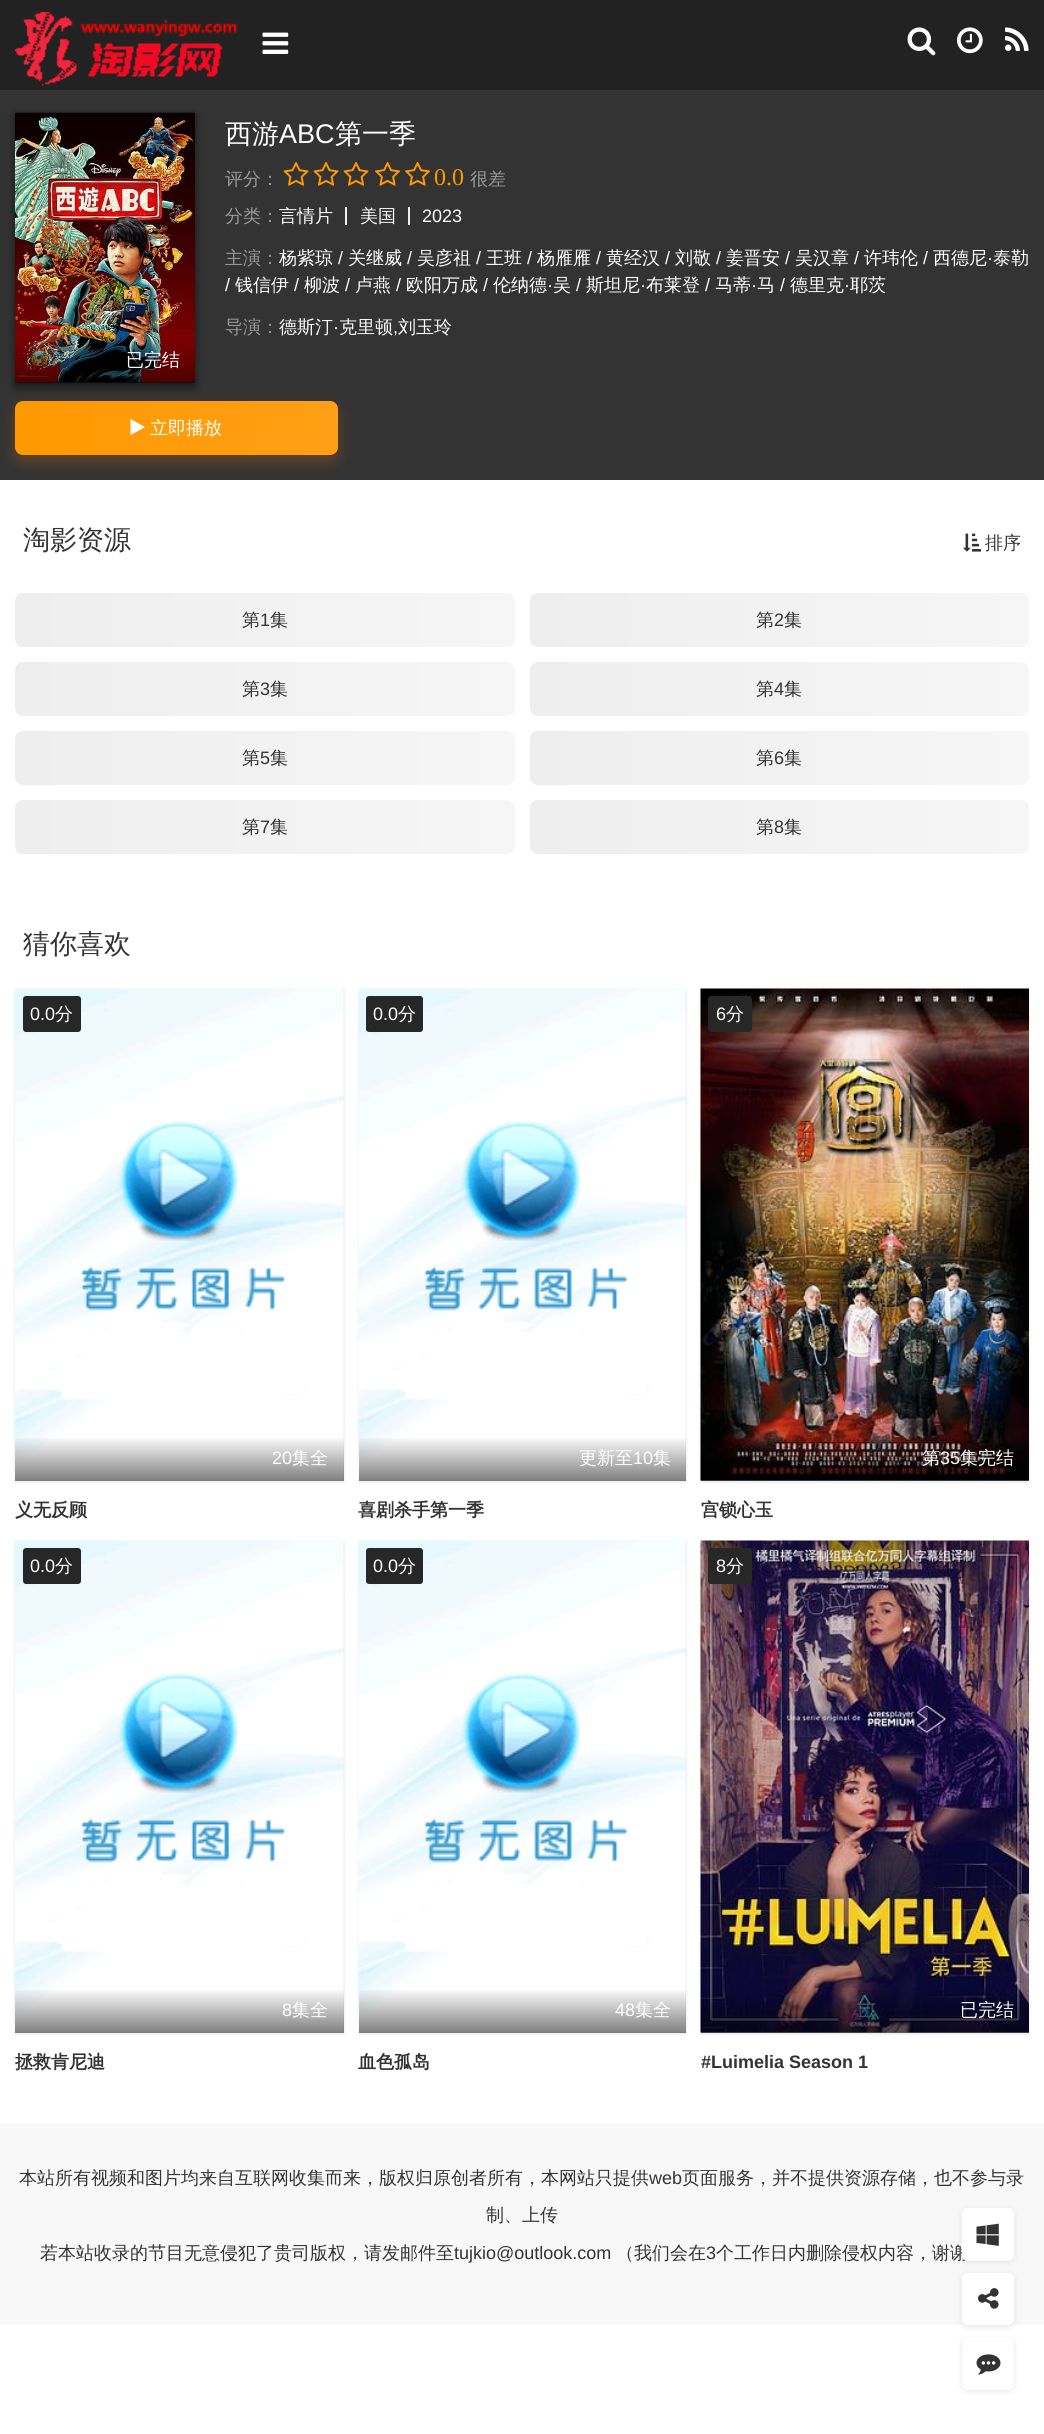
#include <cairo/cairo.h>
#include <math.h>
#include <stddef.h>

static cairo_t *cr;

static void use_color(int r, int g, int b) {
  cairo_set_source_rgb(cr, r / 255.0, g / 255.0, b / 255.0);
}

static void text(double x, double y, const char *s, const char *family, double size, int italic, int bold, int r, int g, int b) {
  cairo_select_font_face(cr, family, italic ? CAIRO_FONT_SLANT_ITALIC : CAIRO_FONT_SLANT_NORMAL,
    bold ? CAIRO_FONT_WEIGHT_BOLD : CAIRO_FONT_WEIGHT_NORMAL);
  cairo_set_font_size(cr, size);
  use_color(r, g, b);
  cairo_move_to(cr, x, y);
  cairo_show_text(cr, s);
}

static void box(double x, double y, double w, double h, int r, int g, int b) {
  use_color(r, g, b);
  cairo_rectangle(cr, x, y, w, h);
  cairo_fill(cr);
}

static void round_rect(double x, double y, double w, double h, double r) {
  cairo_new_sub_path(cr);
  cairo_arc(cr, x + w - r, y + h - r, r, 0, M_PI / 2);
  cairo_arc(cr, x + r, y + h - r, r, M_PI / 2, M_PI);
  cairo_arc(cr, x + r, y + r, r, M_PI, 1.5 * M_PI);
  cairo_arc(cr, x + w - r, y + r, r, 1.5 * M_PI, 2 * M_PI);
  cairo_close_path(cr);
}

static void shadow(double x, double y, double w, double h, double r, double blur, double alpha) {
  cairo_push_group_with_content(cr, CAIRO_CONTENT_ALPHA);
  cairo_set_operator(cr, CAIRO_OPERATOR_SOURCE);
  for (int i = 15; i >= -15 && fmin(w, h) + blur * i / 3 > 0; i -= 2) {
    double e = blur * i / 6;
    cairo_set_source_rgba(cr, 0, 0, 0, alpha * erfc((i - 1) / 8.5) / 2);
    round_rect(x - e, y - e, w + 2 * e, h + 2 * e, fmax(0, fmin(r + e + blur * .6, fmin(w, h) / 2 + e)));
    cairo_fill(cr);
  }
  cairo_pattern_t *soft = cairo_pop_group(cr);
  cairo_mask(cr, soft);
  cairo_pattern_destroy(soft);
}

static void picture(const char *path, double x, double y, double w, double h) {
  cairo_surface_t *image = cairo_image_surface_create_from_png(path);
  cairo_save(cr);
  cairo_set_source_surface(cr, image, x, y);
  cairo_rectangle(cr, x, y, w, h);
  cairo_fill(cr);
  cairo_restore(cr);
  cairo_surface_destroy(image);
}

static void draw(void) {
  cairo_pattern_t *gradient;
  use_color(255, 255, 255);
  cairo_paint(cr);
  box(0, 0, 1044, 90, 34, 34, 34);
  picture("img_01.png", 15, 12, 223, 74);
  picture("img_02.png", 262, 32, 27, 22);
  picture("img_03.png", 907, 27, 29, 29);
  picture("img_04.png", 957, 27, 26, 27);
  picture("img_05.png", 1005, 27, 24, 24);
  box(0, 90, 1044, 390, 51, 51, 51);
  picture("img_06.png", 283, 161, 26, 25);
  picture("img_06.png", 313, 161, 26, 25);
  picture("img_06.png", 343, 161, 26, 25);
  picture("img_07.png", 375, 161, 25, 25);
  picture("img_07.png", 405, 161, 25, 25);
  box(345, 207, 2, 18, 238, 238, 238);
  box(408, 207, 2, 18, 238, 238, 238);
  use_color(0, 0, 0);
  shadow(15, 116, 180, 270, 0, 4.5, 0.6);
  picture("img_08.png", 15, 112, 180, 271);
  gradient = cairo_pattern_create_linear(105, 338, 105, 383);
  cairo_pattern_add_color_stop_rgba(gradient, 0, 0, 0, 0, 0);
  cairo_pattern_add_color_stop_rgba(gradient, 1, 0, 0, 0, 0.5);
  cairo_set_source(cr, gradient);
  cairo_pattern_destroy(gradient);
  cairo_rectangle(cr, 15, 340, 180, 43);
  cairo_fill(cr);
  use_color(255, 111, 0);
  shadow(15, 408, 323, 54, 8, 7.5, 0.25);
  gradient = cairo_pattern_create_linear(15, 428, 338, 428);
  cairo_pattern_add_color_stop_rgba(gradient, 0, 1, 0.6, 0, 1);
  cairo_pattern_add_color_stop_rgba(gradient, 1, 1, 0.624, 0.086, 1);
  cairo_set_source(cr, gradient);
  cairo_pattern_destroy(gradient);
  round_rect(15, 401, 323, 54, 8);
  cairo_fill(cr);
  picture("img_09.png", 130, 419, 15, 16);
  picture("img_10.png", 963, 533, 18, 19);
  gradient = cairo_pattern_create_linear(15, 620, 515, 620);
  cairo_pattern_add_color_stop_rgba(gradient, 0, 0.933, 0.933, 0.933, 1);
  cairo_pattern_add_color_stop_rgba(gradient, 1, 0.965, 0.965, 0.965, 1);
  cairo_set_source(cr, gradient);
  cairo_pattern_destroy(gradient);
  round_rect(15, 593, 500, 54, 8);
  cairo_fill(cr);
  gradient = cairo_pattern_create_linear(530, 620, 1029, 620);
  cairo_pattern_add_color_stop_rgba(gradient, 0, 0.933, 0.933, 0.933, 1);
  cairo_pattern_add_color_stop_rgba(gradient, 1, 0.965, 0.965, 0.965, 1);
  cairo_set_source(cr, gradient);
  cairo_pattern_destroy(gradient);
  round_rect(530, 593, 499, 54, 8);
  cairo_fill(cr);
  gradient = cairo_pattern_create_linear(15, 689, 515, 689);
  cairo_pattern_add_color_stop_rgba(gradient, 0, 0.933, 0.933, 0.933, 1);
  cairo_pattern_add_color_stop_rgba(gradient, 1, 0.965, 0.965, 0.965, 1);
  cairo_set_source(cr, gradient);
  cairo_pattern_destroy(gradient);
  round_rect(15, 662, 500, 54, 8);
  cairo_fill(cr);
  gradient = cairo_pattern_create_linear(530, 689, 1029, 689);
  cairo_pattern_add_color_stop_rgba(gradient, 0, 0.933, 0.933, 0.933, 1);
  cairo_pattern_add_color_stop_rgba(gradient, 1, 0.965, 0.965, 0.965, 1);
  cairo_set_source(cr, gradient);
  cairo_pattern_destroy(gradient);
  round_rect(530, 662, 499, 54, 8);
  cairo_fill(cr);
  gradient = cairo_pattern_create_linear(15, 758, 515, 758);
  cairo_pattern_add_color_stop_rgba(gradient, 0, 0.933, 0.933, 0.933, 1);
  cairo_pattern_add_color_stop_rgba(gradient, 1, 0.965, 0.965, 0.965, 1);
  cairo_set_source(cr, gradient);
  cairo_pattern_destroy(gradient);
  round_rect(15, 731, 500, 54, 8);
  cairo_fill(cr);
  gradient = cairo_pattern_create_linear(530, 758, 1029, 758);
  cairo_pattern_add_color_stop_rgba(gradient, 0, 0.933, 0.933, 0.933, 1);
  cairo_pattern_add_color_stop_rgba(gradient, 1, 0.965, 0.965, 0.965, 1);
  cairo_set_source(cr, gradient);
  cairo_pattern_destroy(gradient);
  round_rect(530, 731, 499, 54, 8);
  cairo_fill(cr);
  gradient = cairo_pattern_create_linear(15, 827, 515, 827);
  cairo_pattern_add_color_stop_rgba(gradient, 0, 0.933, 0.933, 0.933, 1);
  cairo_pattern_add_color_stop_rgba(gradient, 1, 0.965, 0.965, 0.965, 1);
  cairo_set_source(cr, gradient);
  cairo_pattern_destroy(gradient);
  round_rect(15, 800, 500, 54, 8);
  cairo_fill(cr);
  gradient = cairo_pattern_create_linear(530, 827, 1029, 827);
  cairo_pattern_add_color_stop_rgba(gradient, 0, 0.933, 0.933, 0.933, 1);
  cairo_pattern_add_color_stop_rgba(gradient, 1, 0.965, 0.965, 0.965, 1);
  cairo_set_source(cr, gradient);
  cairo_pattern_destroy(gradient);
  round_rect(530, 800, 499, 54, 8);
  cairo_fill(cr);
  use_color(0, 0, 0);
  shadow(15, 990, 329, 492, 0, 1.5, 0.1);
  picture("img_11.png", 15, 988, 329, 493);
  use_color(40, 39, 39);
  round_rect(23, 996, 58, 36, 3);
  cairo_fill(cr);
  gradient = cairo_pattern_create_linear(179, 1436, 179, 1481);
  cairo_pattern_add_color_stop_rgba(gradient, 0, 0, 0, 0, 0);
  cairo_pattern_add_color_stop_rgba(gradient, 1, 0, 0, 0, 0.5);
  cairo_set_source(cr, gradient);
  cairo_pattern_destroy(gradient);
  cairo_rectangle(cr, 15, 1438, 329, 43);
  cairo_fill(cr);
  use_color(0, 0, 0);
  shadow(359, 990, 327, 492, 0, 1.5, 0.1);
  picture("img_12.png", 358, 988, 328, 493);
  use_color(40, 39, 39);
  round_rect(366, 996, 57, 36, 3);
  cairo_fill(cr);
  gradient = cairo_pattern_create_linear(522, 1436, 522, 1481);
  cairo_pattern_add_color_stop_rgba(gradient, 0, 0, 0, 0, 0);
  cairo_pattern_add_color_stop_rgba(gradient, 1, 0, 0, 0, 0.5);
  cairo_set_source(cr, gradient);
  cairo_pattern_destroy(gradient);
  cairo_rectangle(cr, 359, 1438, 327, 43);
  cairo_fill(cr);
  use_color(0, 0, 0);
  shadow(701, 990, 328, 492, 0, 1.5, 0.1);
  picture("img_13.png", 700, 988, 329, 493);
  use_color(40, 39, 39);
  round_rect(708, 996, 44, 36, 3);
  cairo_fill(cr);
  gradient = cairo_pattern_create_linear(865, 1436, 865, 1481);
  cairo_pattern_add_color_stop_rgba(gradient, 0, 0, 0, 0, 0);
  cairo_pattern_add_color_stop_rgba(gradient, 1, 0, 0, 0, 0.5);
  cairo_set_source(cr, gradient);
  cairo_pattern_destroy(gradient);
  cairo_rectangle(cr, 701, 1438, 328, 43);
  cairo_fill(cr);
  use_color(0, 0, 0);
  shadow(15, 1542, 329, 492, 0, 1.5, 0.1);
  picture("img_11.png", 15, 1540, 329, 493);
  use_color(40, 39, 39);
  round_rect(23, 1548, 58, 36, 3);
  cairo_fill(cr);
  gradient = cairo_pattern_create_linear(179, 1988, 179, 2033);
  cairo_pattern_add_color_stop_rgba(gradient, 0, 0, 0, 0, 0);
  cairo_pattern_add_color_stop_rgba(gradient, 1, 0, 0, 0, 0.5);
  cairo_set_source(cr, gradient);
  cairo_pattern_destroy(gradient);
  cairo_rectangle(cr, 15, 1990, 329, 43);
  cairo_fill(cr);
  use_color(0, 0, 0);
  shadow(359, 1542, 327, 492, 0, 1.5, 0.1);
  picture("img_12.png", 358, 1540, 328, 493);
  use_color(40, 39, 39);
  round_rect(366, 1548, 57, 36, 3);
  cairo_fill(cr);
  gradient = cairo_pattern_create_linear(522, 1988, 522, 2033);
  cairo_pattern_add_color_stop_rgba(gradient, 0, 0, 0, 0, 0);
  cairo_pattern_add_color_stop_rgba(gradient, 1, 0, 0, 0, 0.5);
  cairo_set_source(cr, gradient);
  cairo_pattern_destroy(gradient);
  cairo_rectangle(cr, 359, 1990, 327, 43);
  cairo_fill(cr);
  use_color(0, 0, 0);
  shadow(701, 1542, 328, 492, 0, 1.5, 0.1);
  picture("img_14.png", 700, 1540, 329, 493);
  use_color(40, 39, 39);
  round_rect(708, 1548, 44, 36, 3);
  cairo_fill(cr);
  gradient = cairo_pattern_create_linear(865, 1988, 865, 2033);
  cairo_pattern_add_color_stop_rgba(gradient, 0, 0, 0, 0, 0);
  cairo_pattern_add_color_stop_rgba(gradient, 1, 0, 0, 0, 0.5);
  cairo_set_source(cr, gradient);
  cairo_pattern_destroy(gradient);
  cairo_rectangle(cr, 701, 1990, 328, 43);
  cairo_fill(cr);
  box(0, 2123, 1044, 202, 248, 248, 248);
  use_color(0, 0, 0);
  shadow(962, 2210, 52, 52, 6, 3, 0.1);
  shadow(962, 2274, 52, 53, 6, 3, 0.1);
  use_color(255, 255, 255);
  round_rect(962, 2273, 52, 52, 6);
  cairo_fill(cr);
  picture("img_16.png", 978, 2288, 21, 21);
  use_color(0, 0, 0);
  shadow(962, 2339, 52, 52, 6, 3, 0.1);
  use_color(255, 255, 255);
  round_rect(962, 2337, 52, 53, 6);
  cairo_fill(cr);
  picture("img_17.png", 976, 2354, 25, 21);
  text(225, 143, "西游", "WenQuanYi Zen Hei Medium", 27, 0, 0, 255, 255, 255);
  text(279, 143, "ABC", "Liberation Sans", 27, 0, 0, 255, 255, 255);
  text(335, 143, "第一季", "WenQuanYi Zen Hei Medium", 27, 0, 0, 255, 255, 255);
  text(225, 185, "评分：", "WenQuanYi Zen Hei Medium", 18, 0, 0, 153, 153, 153);
  text(434, 185, "0.0", "Liberation Serif", 24, 0, 0, 255, 153, 0);
  text(470, 185, "很差", "WenQuanYi Zen Hei Medium", 18, 0, 0, 153, 153, 153);
  text(225, 222, "分类：", "WenQuanYi Zen Hei Medium", 18, 0, 0, 153, 153, 153);
  text(279, 222, "言情片", "WenQuanYi Zen Hei Medium", 18, 0, 0, 255, 255, 255);
  text(360, 222, "美国", "WenQuanYi Zen Hei Medium", 18, 0, 0, 255, 255, 255);
  text(422, 222, "2023", "Liberation Sans", 18, 0, 0, 255, 255, 255);
  text(225, 264, "主演：", "WenQuanYi Zen Hei Medium", 18, 0, 0, 153, 153, 153);
  text(279, 264, "杨紫琼", "WenQuanYi Zen Hei Medium", 18, 0, 0, 255, 255, 255);
  text(338, 264, "/", "Liberation Sans", 18, 0, 0, 255, 255, 255);
  text(348, 264, "关继威", "WenQuanYi Zen Hei Medium", 18, 0, 0, 255, 255, 255);
  text(407, 264, "/", "Liberation Sans", 18, 0, 0, 255, 255, 255);
  text(417, 264, "吴彦祖", "WenQuanYi Zen Hei Medium", 18, 0, 0, 255, 255, 255);
  text(476, 264, "/", "Liberation Sans", 18, 0, 0, 255, 255, 255);
  text(486, 264, "王班", "WenQuanYi Zen Hei Medium", 18, 0, 0, 255, 255, 255);
  text(527, 264, "/", "Liberation Sans", 18, 0, 0, 255, 255, 255);
  text(537, 264, "杨雁雁", "WenQuanYi Zen Hei Medium", 18, 0, 0, 255, 255, 255);
  text(596, 264, "/", "Liberation Sans", 18, 0, 0, 255, 255, 255);
  text(606, 264, "黄经汉", "WenQuanYi Zen Hei Medium", 18, 0, 0, 255, 255, 255);
  text(665, 264, "/", "Liberation Sans", 18, 0, 0, 255, 255, 255);
  text(675, 264, "刘敬", "WenQuanYi Zen Hei Medium", 18, 0, 0, 255, 255, 255);
  text(716, 264, "/", "Liberation Sans", 18, 0, 0, 255, 255, 255);
  text(726, 264, "姜晋安", "WenQuanYi Zen Hei Medium", 18, 0, 0, 255, 255, 255);
  text(785, 264, "/", "Liberation Sans", 18, 0, 0, 255, 255, 255);
  text(795, 264, "吴汉章", "WenQuanYi Zen Hei Medium", 18, 0, 0, 255, 255, 255);
  text(854, 264, "/", "Liberation Sans", 18, 0, 0, 255, 255, 255);
  text(864, 264, "许玮伦", "WenQuanYi Zen Hei Medium", 18, 0, 0, 255, 255, 255);
  text(923, 264, "/", "Liberation Sans", 18, 0, 0, 255, 255, 255);
  text(933, 264, "西德尼", "WenQuanYi Zen Hei Medium", 18, 0, 0, 255, 255, 255);
  text(987, 264, "·", "Liberation Sans", 18, 0, 0, 255, 255, 255);
  text(993, 264, "泰勒", "WenQuanYi Zen Hei Medium", 18, 0, 0, 255, 255, 255);
  text(225, 291, "/", "Liberation Sans", 18, 0, 0, 255, 255, 255);
  text(235, 291, "钱信伊", "WenQuanYi Zen Hei Medium", 18, 0, 0, 255, 255, 255);
  text(294, 291, "/", "Liberation Sans", 18, 0, 0, 255, 255, 255);
  text(304, 291, "柳波", "WenQuanYi Zen Hei Medium", 18, 0, 0, 255, 255, 255);
  text(345, 291, "/", "Liberation Sans", 18, 0, 0, 255, 255, 255);
  text(355, 291, "卢燕", "WenQuanYi Zen Hei Medium", 18, 0, 0, 255, 255, 255);
  text(396, 291, "/", "Liberation Sans", 18, 0, 0, 255, 255, 255);
  text(406, 291, "欧阳万成", "WenQuanYi Zen Hei Medium", 18, 0, 0, 255, 255, 255);
  text(483, 291, "/", "Liberation Sans", 18, 0, 0, 255, 255, 255);
  text(493, 291, "伦纳德", "WenQuanYi Zen Hei Medium", 18, 0, 0, 255, 255, 255);
  text(547, 291, "·", "Liberation Sans", 18, 0, 0, 255, 255, 255);
  text(553, 291, "吴", "WenQuanYi Zen Hei Medium", 18, 0, 0, 255, 255, 255);
  text(576, 291, "/", "Liberation Sans", 18, 0, 0, 255, 255, 255);
  text(586, 291, "斯坦尼", "WenQuanYi Zen Hei Medium", 18, 0, 0, 255, 255, 255);
  text(640, 291, "·", "Liberation Sans", 18, 0, 0, 255, 255, 255);
  text(646, 291, "布莱登", "WenQuanYi Zen Hei Medium", 18, 0, 0, 255, 255, 255);
  text(705, 291, "/", "Liberation Sans", 18, 0, 0, 255, 255, 255);
  text(715, 291, "马蒂", "WenQuanYi Zen Hei Medium", 18, 0, 0, 255, 255, 255);
  text(751, 291, "·", "Liberation Sans", 18, 0, 0, 255, 255, 255);
  text(757, 291, "马", "WenQuanYi Zen Hei Medium", 18, 0, 0, 255, 255, 255);
  text(780, 291, "/", "Liberation Sans", 18, 0, 0, 255, 255, 255);
  text(790, 291, "德里克", "WenQuanYi Zen Hei Medium", 18, 0, 0, 255, 255, 255);
  text(844, 291, "·", "Liberation Sans", 18, 0, 0, 255, 255, 255);
  text(850, 291, "耶茨", "WenQuanYi Zen Hei Medium", 18, 0, 0, 255, 255, 255);
  text(225, 333, "导演：", "WenQuanYi Zen Hei Medium", 18, 0, 0, 153, 153, 153);
  text(279, 333, "德斯汀", "WenQuanYi Zen Hei Medium", 18, 0, 0, 255, 255, 255);
  text(333, 333, "·", "Liberation Sans", 18, 0, 0, 255, 255, 255);
  text(339, 333, "克里顿", "WenQuanYi Zen Hei Medium", 18, 0, 0, 255, 255, 255);
  text(398, 333, "刘玉玲", "WenQuanYi Zen Hei Medium", 18, 0, 0, 255, 255, 255);
  text(393, 333, ",", "Liberation Sans", 18, 0, 0, 255, 255, 255);
  text(126, 366, "已完结", "WenQuanYi Zen Hei Medium", 18, 0, 0, 255, 255, 255);
  text(150, 434, "立即播放", "WenQuanYi Zen Hei Medium", 18, 0, 0, 255, 255, 255);
  text(23, 549, "淘影资源", "WenQuanYi Zen Hei Medium", 27, 0, 0, 51, 51, 51);
  text(985, 549, "排序", "WenQuanYi Zen Hei Medium", 18, 0, 0, 51, 51, 51);
  text(242, 626, "第", "WenQuanYi Zen Hei Medium", 18, 0, 0, 51, 51, 51);
  text(260, 626, "1", "Liberation Sans", 18, 0, 0, 51, 51, 51);
  text(270, 626, "集", "WenQuanYi Zen Hei Medium", 18, 0, 0, 51, 51, 51);
  text(756, 626, "第", "WenQuanYi Zen Hei Medium", 18, 0, 0, 51, 51, 51);
  text(774, 626, "2", "Liberation Sans", 18, 0, 0, 51, 51, 51);
  text(784, 626, "集", "WenQuanYi Zen Hei Medium", 18, 0, 0, 51, 51, 51);
  text(242, 695, "第", "WenQuanYi Zen Hei Medium", 18, 0, 0, 51, 51, 51);
  text(260, 695, "3", "Liberation Sans", 18, 0, 0, 51, 51, 51);
  text(270, 695, "集", "WenQuanYi Zen Hei Medium", 18, 0, 0, 51, 51, 51);
  text(756, 695, "第", "WenQuanYi Zen Hei Medium", 18, 0, 0, 51, 51, 51);
  text(774, 695, "4", "Liberation Sans", 18, 0, 0, 51, 51, 51);
  text(784, 695, "集", "WenQuanYi Zen Hei Medium", 18, 0, 0, 51, 51, 51);
  text(242, 764, "第", "WenQuanYi Zen Hei Medium", 18, 0, 0, 51, 51, 51);
  text(260, 764, "5", "Liberation Sans", 18, 0, 0, 51, 51, 51);
  text(270, 764, "集", "WenQuanYi Zen Hei Medium", 18, 0, 0, 51, 51, 51);
  text(756, 764, "第", "WenQuanYi Zen Hei Medium", 18, 0, 0, 51, 51, 51);
  text(774, 764, "6", "Liberation Sans", 18, 0, 0, 51, 51, 51);
  text(784, 764, "集", "WenQuanYi Zen Hei Medium", 18, 0, 0, 51, 51, 51);
  text(242, 833, "第", "WenQuanYi Zen Hei Medium", 18, 0, 0, 51, 51, 51);
  text(260, 833, "7", "Liberation Sans", 18, 0, 0, 51, 51, 51);
  text(270, 833, "集", "WenQuanYi Zen Hei Medium", 18, 0, 0, 51, 51, 51);
  text(756, 833, "第", "WenQuanYi Zen Hei Medium", 18, 0, 0, 51, 51, 51);
  text(774, 833, "8", "Liberation Sans", 18, 0, 0, 51, 51, 51);
  text(784, 833, "集", "WenQuanYi Zen Hei Medium", 18, 0, 0, 51, 51, 51);
  text(23, 953, "猜你喜欢", "WenQuanYi Zen Hei Medium", 27, 0, 0, 51, 51, 51);
  text(30, 1020, "0.0", "Liberation Sans", 18, 0, 0, 255, 255, 255);
  text(55, 1020, "分", "WenQuanYi Zen Hei Medium", 18, 0, 0, 255, 255, 255);
  text(272, 1464, "20", "Liberation Sans", 18, 0, 0, 255, 255, 255);
  text(292, 1464, "集全", "WenQuanYi Zen Hei Medium", 18, 0, 0, 255, 255, 255);
  text(15, 1516, "义无反顾", "WenQuanYi Zen Hei", 18, 0, 1, 51, 51, 51);
  text(373, 1020, "0.0", "Liberation Sans", 18, 0, 0, 255, 255, 255);
  text(398, 1020, "分", "WenQuanYi Zen Hei Medium", 18, 0, 0, 255, 255, 255);
  text(579, 1464, "更新至", "WenQuanYi Zen Hei Medium", 18, 0, 0, 255, 255, 255);
  text(633, 1464, "10", "Liberation Sans", 18, 0, 0, 255, 255, 255);
  text(653, 1464, "集", "WenQuanYi Zen Hei Medium", 18, 0, 0, 255, 255, 255);
  text(358, 1516, "喜剧杀手第一季", "WenQuanYi Zen Hei", 18, 0, 1, 51, 51, 51);
  text(716, 1020, "6", "Liberation Sans", 18, 0, 0, 255, 255, 255);
  text(726, 1020, "分", "WenQuanYi Zen Hei Medium", 18, 0, 0, 255, 255, 255);
  text(922, 1464, "第", "WenQuanYi Zen Hei Medium", 18, 0, 0, 255, 255, 255);
  text(940, 1464, "35", "Liberation Sans", 18, 0, 0, 255, 255, 255);
  text(960, 1464, "集完结", "WenQuanYi Zen Hei Medium", 18, 0, 0, 255, 255, 255);
  text(701, 1516, "宫锁心玉", "WenQuanYi Zen Hei", 18, 0, 1, 51, 51, 51);
  text(30, 1572, "0.0", "Liberation Sans", 18, 0, 0, 255, 255, 255);
  text(55, 1572, "分", "WenQuanYi Zen Hei Medium", 18, 0, 0, 255, 255, 255);
  text(282, 2016, "8", "Liberation Sans", 18, 0, 0, 255, 255, 255);
  text(292, 2016, "集全", "WenQuanYi Zen Hei Medium", 18, 0, 0, 255, 255, 255);
  text(15, 2068, "拯救肯尼迪", "WenQuanYi Zen Hei", 18, 0, 1, 51, 51, 51);
  text(373, 1572, "0.0", "Liberation Sans", 18, 0, 0, 255, 255, 255);
  text(398, 1572, "分", "WenQuanYi Zen Hei Medium", 18, 0, 0, 255, 255, 255);
  text(615, 2016, "48", "Liberation Sans", 18, 0, 0, 255, 255, 255);
  text(635, 2016, "集全", "WenQuanYi Zen Hei Medium", 18, 0, 0, 255, 255, 255);
  text(358, 2068, "血色孤岛", "WenQuanYi Zen Hei", 18, 0, 1, 51, 51, 51);
  text(716, 1572, "8", "Liberation Sans", 18, 0, 0, 255, 255, 255);
  text(726, 1572, "分", "WenQuanYi Zen Hei Medium", 18, 0, 0, 255, 255, 255);
  text(960, 2016, "已完结", "WenQuanYi Zen Hei Medium", 18, 0, 0, 255, 255, 255);
  text(701, 2068, "#Luimelia Season 1", "Liberation Sans", 18, 0, 1, 51, 51, 51);
  text(19, 2184, "本站所有视频和图片均来自互联网收集而来，版权归原创者所有，本网站只提供", "WenQuanYi Zen Hei Medium", 18, 0, 0, 51, 51, 51);
  text(649, 2184, "web", "Liberation Sans", 18, 0, 0, 51, 51, 51);
  text(682, 2184, "页面服务，并不提供资源存储，也不参与录", "WenQuanYi Zen Hei Medium", 18, 0, 0, 51, 51, 51);
  text(486, 2221, "制、上传", "WenQuanYi Zen Hei Medium", 18, 0, 0, 51, 51, 51);
  text(40, 2259, "若本站收录的节目无意侵犯了贵司版权，请发邮件至", "WenQuanYi Zen Hei Medium", 18, 0, 0, 51, 51, 51);
  text(454, 2259, "tujkio@outlook.com", "Liberation Sans", 18, 0, 0, 51, 51, 51);
  text(616, 2259, "（我们会在", "WenQuanYi Zen Hei Medium", 18, 0, 0, 51, 51, 51);
  text(706, 2259, "3", "Liberation Sans", 18, 0, 0, 51, 51, 51);
  text(716, 2259, "个工作日内删除侵权内容，谢谢", "WenQuanYi Zen Hei Medium", 18, 0, 0, 51, 51, 51);
  use_color(255, 255, 255);
  round_rect(962, 2208, 52, 53, 6);
  cairo_fill(cr);
  picture("img_15.png", 976, 2223, 23, 23);
}

int main(void) {
  cairo_surface_t *surface = cairo_image_surface_create(CAIRO_FORMAT_RGB24, 1044, 2434);
  cr = cairo_create(surface);
  cairo_font_options_t *options = cairo_font_options_create();
  cairo_font_options_set_hint_metrics(options, CAIRO_HINT_METRICS_OFF);
  cairo_font_options_set_hint_style(options, CAIRO_HINT_STYLE_NONE);
  cairo_set_font_options(cr, options);
  cairo_set_miter_limit(cr, 4);
  draw();
  cairo_surface_write_to_png(surface, "out.png");
  cairo_font_options_destroy(options);
  cairo_destroy(cr);
  cairo_surface_destroy(surface);
  return 0;
}
